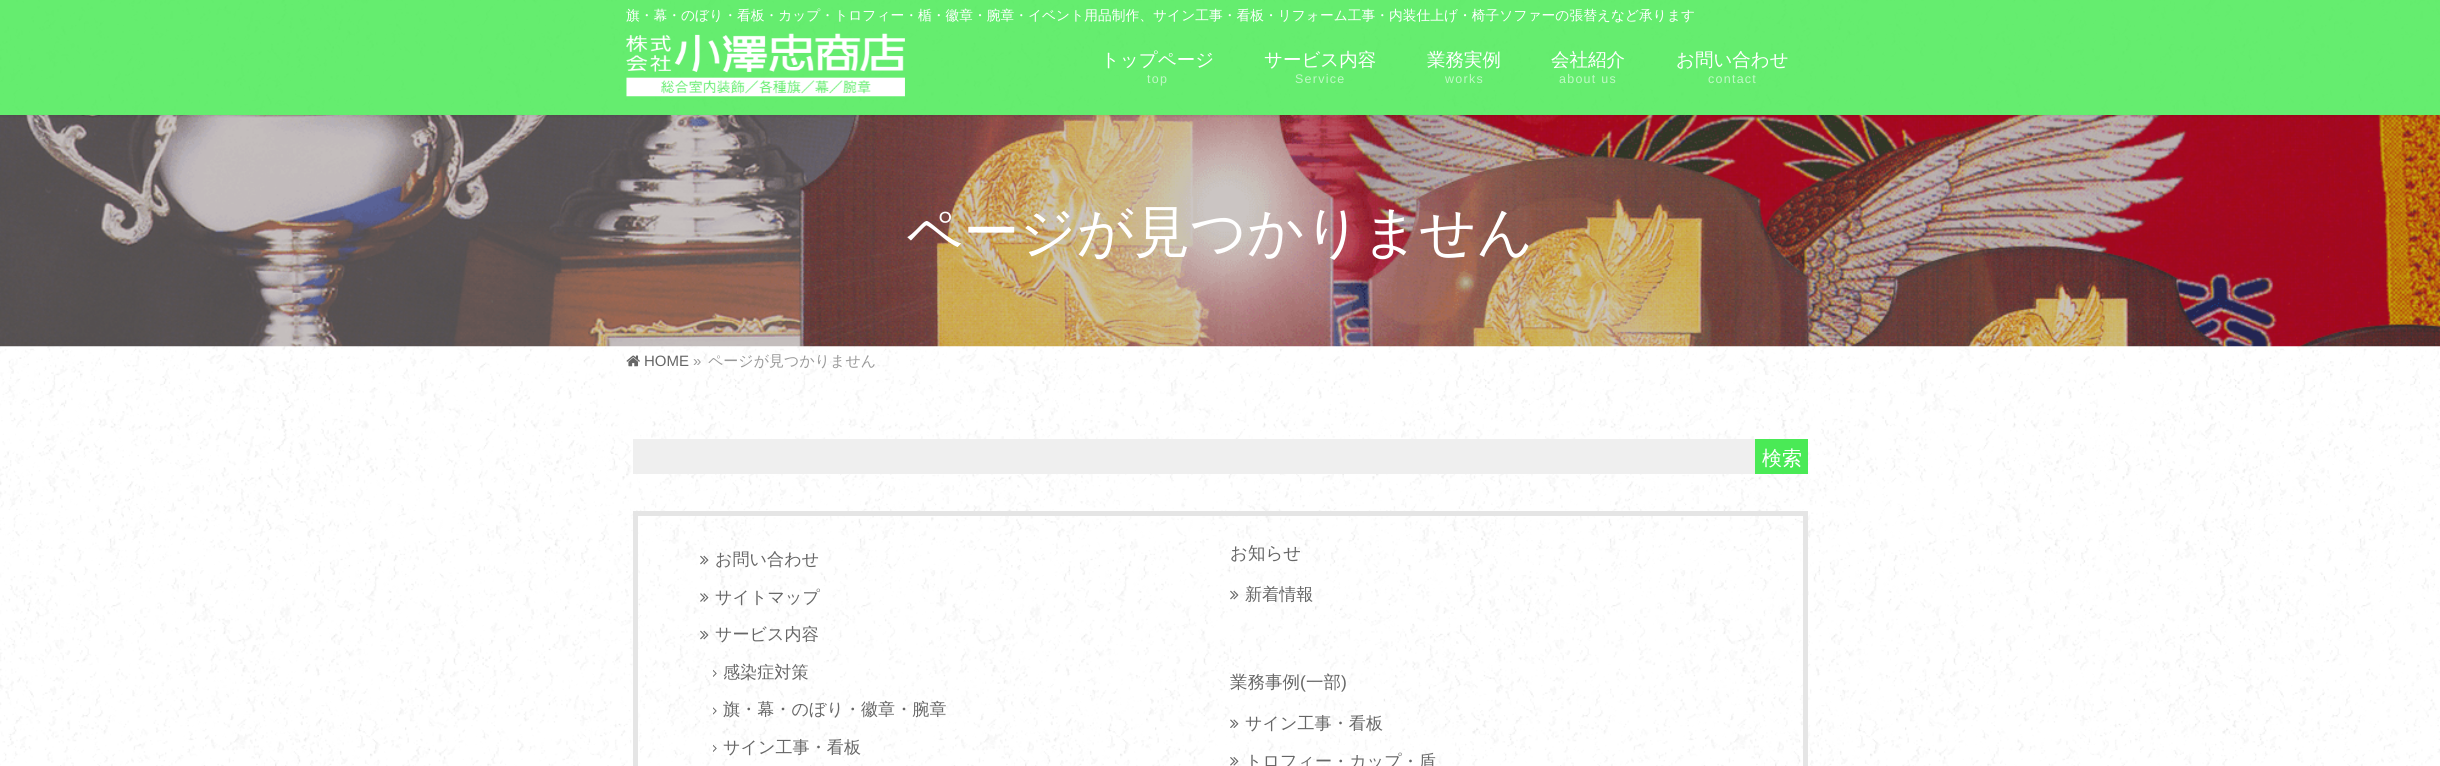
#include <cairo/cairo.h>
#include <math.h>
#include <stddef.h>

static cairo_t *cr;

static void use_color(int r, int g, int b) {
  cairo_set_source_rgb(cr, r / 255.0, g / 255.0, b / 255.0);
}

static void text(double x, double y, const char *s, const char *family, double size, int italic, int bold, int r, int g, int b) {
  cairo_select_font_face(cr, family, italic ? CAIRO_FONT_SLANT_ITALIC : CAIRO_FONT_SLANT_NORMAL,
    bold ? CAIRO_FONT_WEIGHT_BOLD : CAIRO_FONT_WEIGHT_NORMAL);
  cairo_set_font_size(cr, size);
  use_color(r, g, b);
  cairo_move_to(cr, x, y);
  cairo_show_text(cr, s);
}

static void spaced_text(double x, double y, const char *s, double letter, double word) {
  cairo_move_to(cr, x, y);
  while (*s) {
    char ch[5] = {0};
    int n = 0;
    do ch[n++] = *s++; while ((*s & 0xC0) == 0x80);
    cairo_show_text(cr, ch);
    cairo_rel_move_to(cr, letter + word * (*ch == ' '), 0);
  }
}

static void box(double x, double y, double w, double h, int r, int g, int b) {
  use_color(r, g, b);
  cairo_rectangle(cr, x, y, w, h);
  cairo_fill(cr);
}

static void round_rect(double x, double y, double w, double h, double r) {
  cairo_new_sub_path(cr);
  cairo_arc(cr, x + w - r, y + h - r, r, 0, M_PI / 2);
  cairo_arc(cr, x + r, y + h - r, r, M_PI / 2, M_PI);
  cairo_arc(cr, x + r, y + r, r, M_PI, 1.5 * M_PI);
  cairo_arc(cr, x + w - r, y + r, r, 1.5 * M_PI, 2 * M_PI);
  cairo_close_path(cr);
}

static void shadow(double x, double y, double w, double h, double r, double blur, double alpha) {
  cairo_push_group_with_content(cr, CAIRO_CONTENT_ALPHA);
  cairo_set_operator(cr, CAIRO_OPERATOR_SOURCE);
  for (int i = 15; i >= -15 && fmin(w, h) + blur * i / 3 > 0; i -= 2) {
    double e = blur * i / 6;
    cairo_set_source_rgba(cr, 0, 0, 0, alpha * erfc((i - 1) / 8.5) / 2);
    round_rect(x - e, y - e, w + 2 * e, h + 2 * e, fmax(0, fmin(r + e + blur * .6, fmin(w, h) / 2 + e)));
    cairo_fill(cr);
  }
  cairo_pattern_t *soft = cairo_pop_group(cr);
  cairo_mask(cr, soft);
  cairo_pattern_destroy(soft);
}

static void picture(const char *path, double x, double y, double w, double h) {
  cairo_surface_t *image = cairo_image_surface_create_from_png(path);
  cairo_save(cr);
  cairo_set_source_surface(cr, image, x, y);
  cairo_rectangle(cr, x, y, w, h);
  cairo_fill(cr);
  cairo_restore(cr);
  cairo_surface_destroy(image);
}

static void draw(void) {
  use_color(255, 255, 255);
  cairo_paint(cr);
  picture("img_01.png", 0, 0, 2440, 766);
  picture("img_03.png", 0, 115, 2440, 232);
  cairo_save(cr);
  cairo_rectangle(cr, 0, 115, 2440, 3);
  cairo_clip(cr);
  use_color(0, 0, 0);
  shadow(0, 1, 2440, 115, 0, 2, 0.1);
  cairo_restore(cr);
  cairo_set_source_rgba(cr, 0.29, 0.918, 0.337, 0.85);
  cairo_rectangle(cr, 0, 0, 2440, 115);
  cairo_fill(cr);
  picture("img_02.png", 626, 33, 279, 64);
  picture("img_04.png", 626, 355, 14, 12);
  box(633, 439, 1122, 35, 239, 239, 239);
  box(1755, 439, 53, 35, 74, 234, 86);
  cairo_rectangle(cr, 635.5, 513.5, 1170, 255);
  use_color(229, 229, 229);
  cairo_set_line_width(cr, 5);
  cairo_stroke(cr);
  picture("img_05.png", 700, 555, 9, 10);
  picture("img_06.png", 700, 593, 9, 9);
  picture("img_07.png", 700, 630, 9, 10);
  picture("img_08.png", 713, 669, 4, 8);
  picture("img_09.png", 713, 707, 4, 8);
  picture("img_10.png", 713, 744, 4, 8);
  picture("img_11.png", 1230, 590, 9, 10);
  picture("img_12.png", 1230, 719, 9, 9);
  picture("img_13.png", 1230, 757, 9, 9);
  text(626, 20, "旗・幕・のぼり・看板・カップ・トロフィー・楯・徽章・腕章・イベント用品制作、サイン工事・看板・リフォーム工事・内装仕上げ・椅子ソファーの張替えなど承ります", "WenQuanYi Zen Hei Medium", 13.75, 0, 0, 255, 255, 255);
  text(1101, 66, "トップページ", "WenQuanYi Zen Hei Medium", 18.5, 0, 0, 255, 255, 255);
  cairo_select_font_face(cr, "Liberation Sans", CAIRO_FONT_SLANT_NORMAL, CAIRO_FONT_WEIGHT_NORMAL);
  cairo_set_font_size(cr, 12.5);
  use_color(193, 248, 198);
  spaced_text(1147, 83, "top", 1.25, 0);
  text(1264, 66, "サービス内容", "WenQuanYi Zen Hei Medium", 18.5, 0, 0, 255, 255, 255);
  cairo_select_font_face(cr, "Liberation Sans", CAIRO_FONT_SLANT_NORMAL, CAIRO_FONT_WEIGHT_NORMAL);
  cairo_set_font_size(cr, 12.5);
  use_color(193, 248, 198);
  spaced_text(1295, 83, "Service", 1.25, 0);
  text(1427, 66, "業務実例", "WenQuanYi Zen Hei Medium", 18.5, 0, 0, 255, 255, 255);
  cairo_select_font_face(cr, "Liberation Sans", CAIRO_FONT_SLANT_NORMAL, CAIRO_FONT_WEIGHT_NORMAL);
  cairo_set_font_size(cr, 12.5);
  use_color(193, 248, 198);
  spaced_text(1445, 83, "works", 1.25, 0);
  text(1551, 66, "会社紹介", "WenQuanYi Zen Hei Medium", 18.5, 0, 0, 255, 255, 255);
  cairo_select_font_face(cr, "Liberation Sans", CAIRO_FONT_SLANT_NORMAL, CAIRO_FONT_WEIGHT_NORMAL);
  cairo_set_font_size(cr, 12.5);
  use_color(193, 248, 198);
  spaced_text(1559, 83, "about us", 1.25, 0);
  text(1676, 66, "お問い合わせ", "WenQuanYi Zen Hei Medium", 18.5, 0, 0, 255, 255, 255);
  cairo_select_font_face(cr, "Liberation Sans", CAIRO_FONT_SLANT_NORMAL, CAIRO_FONT_WEIGHT_NORMAL);
  cairo_set_font_size(cr, 12.5);
  use_color(193, 248, 198);
  spaced_text(1708, 83, "contact", 1.25, 0);
  text(906, 251, "ページが見つかりません", "WenQuanYi Zen Hei Medium", 56, 0, 0, 255, 255, 255);
  text(644, 366, "HOME", "Liberation Sans", 15, 0, 0, 102, 102, 102);
  text(693, 366, "»", "Liberation Sans", 15, 0, 0, 153, 153, 153);
  text(708, 366, "ページが見つかりません", "WenQuanYi Zen Hei Medium", 15, 0, 0, 153, 153, 153);
  text(1762, 465, "検索", "WenQuanYi Zen Hei Medium", 20, 0, 0, 255, 255, 255);
  text(715, 565, "お問い合わせ", "WenQuanYi Zen Hei Medium", 17.1, 0, 0, 102, 102, 102);
  text(715, 603, "サイトマップ", "WenQuanYi Zen Hei Medium", 17.1, 0, 0, 102, 102, 102);
  text(715, 640, "サービス内容", "WenQuanYi Zen Hei Medium", 17.1, 0, 0, 102, 102, 102);
  text(723, 678, "感染症対策", "WenQuanYi Zen Hei Medium", 17.1, 0, 0, 102, 102, 102);
  text(723, 715, "旗・幕・のぼり・徽章・腕章", "WenQuanYi Zen Hei Medium", 17.1, 0, 0, 102, 102, 102);
  text(723, 753, "サイン工事・看板", "WenQuanYi Zen Hei Medium", 17.1, 0, 0, 102, 102, 102);
  text(1230, 559, "お知らせ", "WenQuanYi Zen Hei Medium", 17.5, 0, 0, 102, 102, 102);
  text(1245, 600, "新着情報", "WenQuanYi Zen Hei Medium", 17.1, 0, 0, 102, 102, 102);
  text(1230, 688, "業務事例", "WenQuanYi Zen Hei Medium", 17.5, 0, 0, 102, 102, 102);
  text(1300, 688, "(", "Liberation Sans", 17.5, 0, 0, 102, 102, 102);
  text(1306, 688, "一部", "WenQuanYi Zen Hei Medium", 17.5, 0, 0, 102, 102, 102);
  text(1341, 688, ")", "Liberation Sans", 17.5, 0, 0, 102, 102, 102);
  text(1245, 729, "サイン工事・看板", "WenQuanYi Zen Hei Medium", 17.1, 0, 0, 102, 102, 102);
  text(1245, 767, "トロフィー・カップ・盾", "WenQuanYi Zen Hei Medium", 17.1, 0, 0, 102, 102, 102);
}

int main(void) {
  cairo_surface_t *surface = cairo_image_surface_create(CAIRO_FORMAT_RGB24, 2440, 766);
  cr = cairo_create(surface);
  cairo_font_options_t *options = cairo_font_options_create();
  cairo_font_options_set_hint_metrics(options, CAIRO_HINT_METRICS_OFF);
  cairo_font_options_set_hint_style(options, CAIRO_HINT_STYLE_NONE);
  cairo_set_font_options(cr, options);
  cairo_set_miter_limit(cr, 4);
  draw();
  cairo_surface_write_to_png(surface, "out.png");
  cairo_font_options_destroy(options);
  cairo_destroy(cr);
  cairo_surface_destroy(surface);
  return 0;
}
